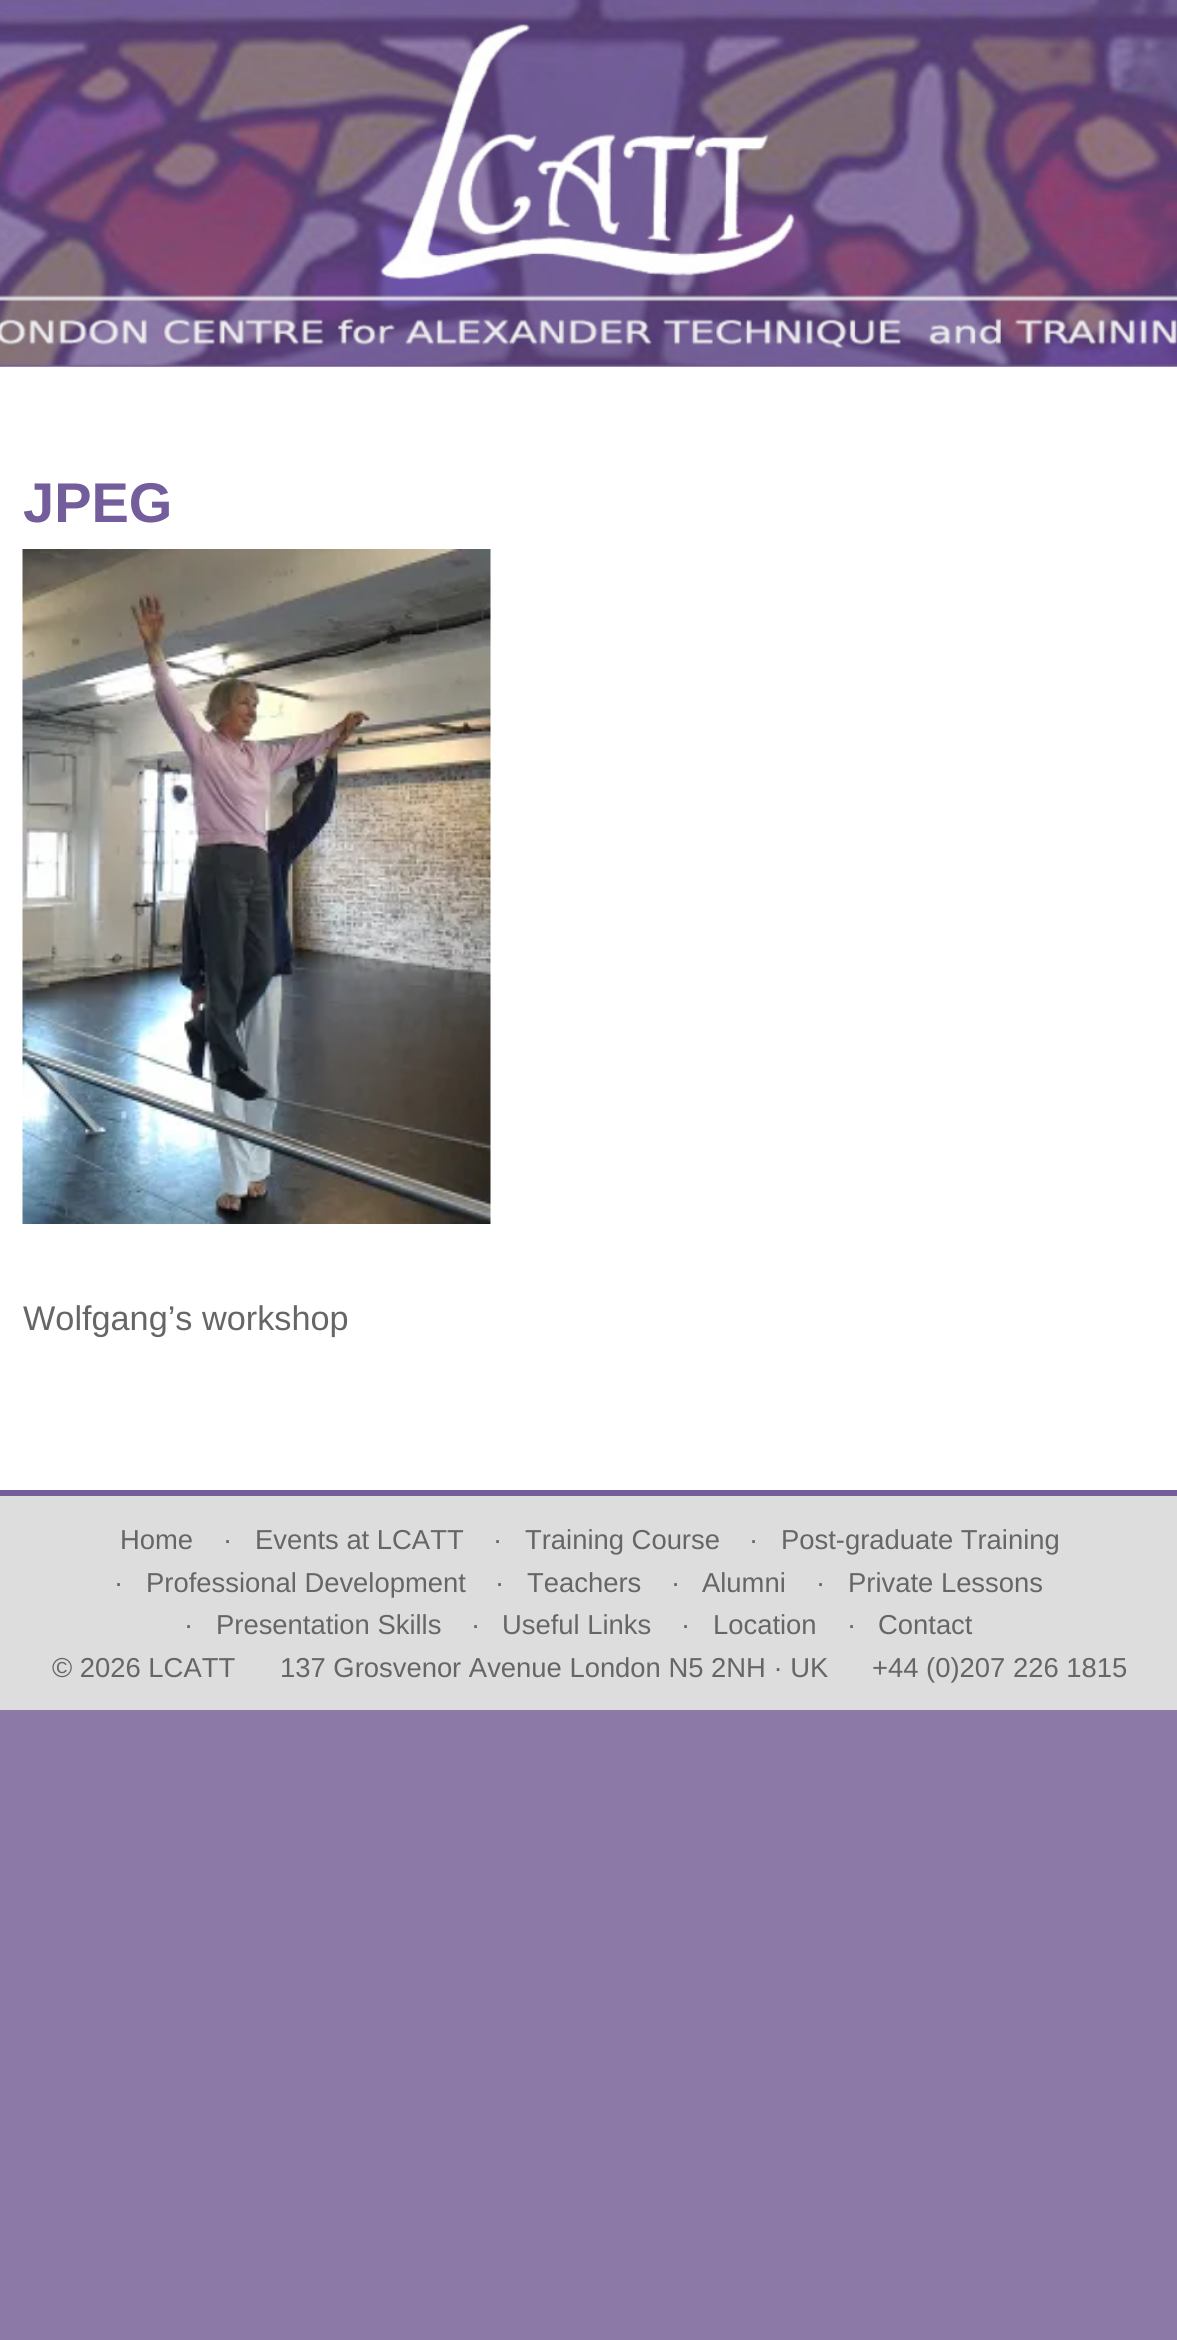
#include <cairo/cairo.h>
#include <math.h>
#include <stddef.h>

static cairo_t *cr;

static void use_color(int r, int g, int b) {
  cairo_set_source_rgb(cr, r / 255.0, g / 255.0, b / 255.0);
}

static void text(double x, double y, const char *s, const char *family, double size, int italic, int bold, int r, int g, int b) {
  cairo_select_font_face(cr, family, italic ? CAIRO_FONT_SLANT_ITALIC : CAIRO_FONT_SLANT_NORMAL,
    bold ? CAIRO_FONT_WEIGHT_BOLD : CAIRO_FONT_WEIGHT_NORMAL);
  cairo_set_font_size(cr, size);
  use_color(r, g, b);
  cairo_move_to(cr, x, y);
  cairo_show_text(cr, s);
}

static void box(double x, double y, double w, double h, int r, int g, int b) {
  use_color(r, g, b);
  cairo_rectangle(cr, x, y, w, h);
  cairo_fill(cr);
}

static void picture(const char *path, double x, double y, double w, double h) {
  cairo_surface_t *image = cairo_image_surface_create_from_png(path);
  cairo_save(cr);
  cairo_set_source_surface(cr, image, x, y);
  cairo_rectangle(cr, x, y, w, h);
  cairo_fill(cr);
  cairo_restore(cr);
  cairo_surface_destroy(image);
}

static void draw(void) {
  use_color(141, 121, 167);
  cairo_paint(cr);
  box(0, 366, 1177, 1124, 255, 255, 255);
  picture("img_01.png", 0, 0, 1177, 367);
  picture("img_02.png", 22, 549, 469, 675);
  box(0, 1490, 1177, 6, 116, 93, 155);
  box(0, 1496, 1177, 214, 221, 221, 221);
  text(23, 522, "JPEG", "Liberation Sans", 56, 0, 1, 116, 93, 155);
  text(23, 1330, "Wolfgang’s workshop", "Liberation Sans", 34.25, 0, 0, 102, 102, 102);
  text(120, 1549, "Home", "Liberation Sans", 27.4, 0, 0, 102, 102, 102);
  text(223, 1549, "·", "Liberation Sans", 27.4, 0, 0, 102, 102, 102);
  text(255, 1549, "Events at LCATT", "Liberation Sans", 27.4, 0, 0, 102, 102, 102);
  text(493, 1549, "·", "Liberation Sans", 27.4, 0, 0, 102, 102, 102);
  text(525, 1549, "Training Course", "Liberation Sans", 27.4, 0, 0, 102, 102, 102);
  text(749, 1549, "·", "Liberation Sans", 27.4, 0, 0, 102, 102, 102);
  text(781, 1549, "Post-graduate Training", "Liberation Sans", 27.4, 0, 0, 102, 102, 102);
  text(114, 1592, "·", "Liberation Sans", 27.4, 0, 0, 102, 102, 102);
  text(146, 1592, "Professional Development", "Liberation Sans", 27.4, 0, 0, 102, 102, 102);
  text(495, 1592, "·", "Liberation Sans", 27.4, 0, 0, 102, 102, 102);
  text(527, 1592, "Teachers", "Liberation Sans", 27.4, 0, 0, 102, 102, 102);
  text(671, 1592, "·", "Liberation Sans", 27.4, 0, 0, 102, 102, 102);
  text(702, 1592, "Alumni", "Liberation Sans", 27.4, 0, 0, 102, 102, 102);
  text(816, 1592, "·", "Liberation Sans", 27.4, 0, 0, 102, 102, 102);
  text(848, 1592, "Private Lessons", "Liberation Sans", 27.4, 0, 0, 102, 102, 102);
  text(184, 1634, "·", "Liberation Sans", 27.4, 0, 0, 102, 102, 102);
  text(216, 1634, "Presentation Skills", "Liberation Sans", 27.4, 0, 0, 102, 102, 102);
  text(471, 1634, "·", "Liberation Sans", 27.4, 0, 0, 102, 102, 102);
  text(502, 1634, "Useful Links", "Liberation Sans", 27.4, 0, 0, 102, 102, 102);
  text(681, 1634, "·", "Liberation Sans", 27.4, 0, 0, 102, 102, 102);
  text(713, 1634, "Location", "Liberation Sans", 27.4, 0, 0, 102, 102, 102);
  text(847, 1634, "·", "Liberation Sans", 27.4, 0, 0, 102, 102, 102);
  text(878, 1634, "Contact", "Liberation Sans", 27.4, 0, 0, 102, 102, 102);
  text(52, 1677, "© 2026 LCATT", "Liberation Sans", 27.4, 0, 0, 102, 102, 102);
  text(280, 1677, "137 Grosvenor Avenue London N5 2NH · UK", "Liberation Sans", 27.4, 0, 0, 102, 102, 102);
  text(872, 1677, "+44 (0)207 226 1815", "Liberation Sans", 27.4, 0, 0, 102, 102, 102);
}

int main(void) {
  cairo_surface_t *surface = cairo_image_surface_create(CAIRO_FORMAT_RGB24, 1177, 2340);
  cr = cairo_create(surface);
  cairo_font_options_t *options = cairo_font_options_create();
  cairo_font_options_set_hint_metrics(options, CAIRO_HINT_METRICS_OFF);
  cairo_font_options_set_hint_style(options, CAIRO_HINT_STYLE_NONE);
  cairo_set_font_options(cr, options);
  cairo_set_miter_limit(cr, 4);
  draw();
  cairo_surface_write_to_png(surface, "out.png");
  cairo_font_options_destroy(options);
  cairo_destroy(cr);
  cairo_surface_destroy(surface);
  return 0;
}
